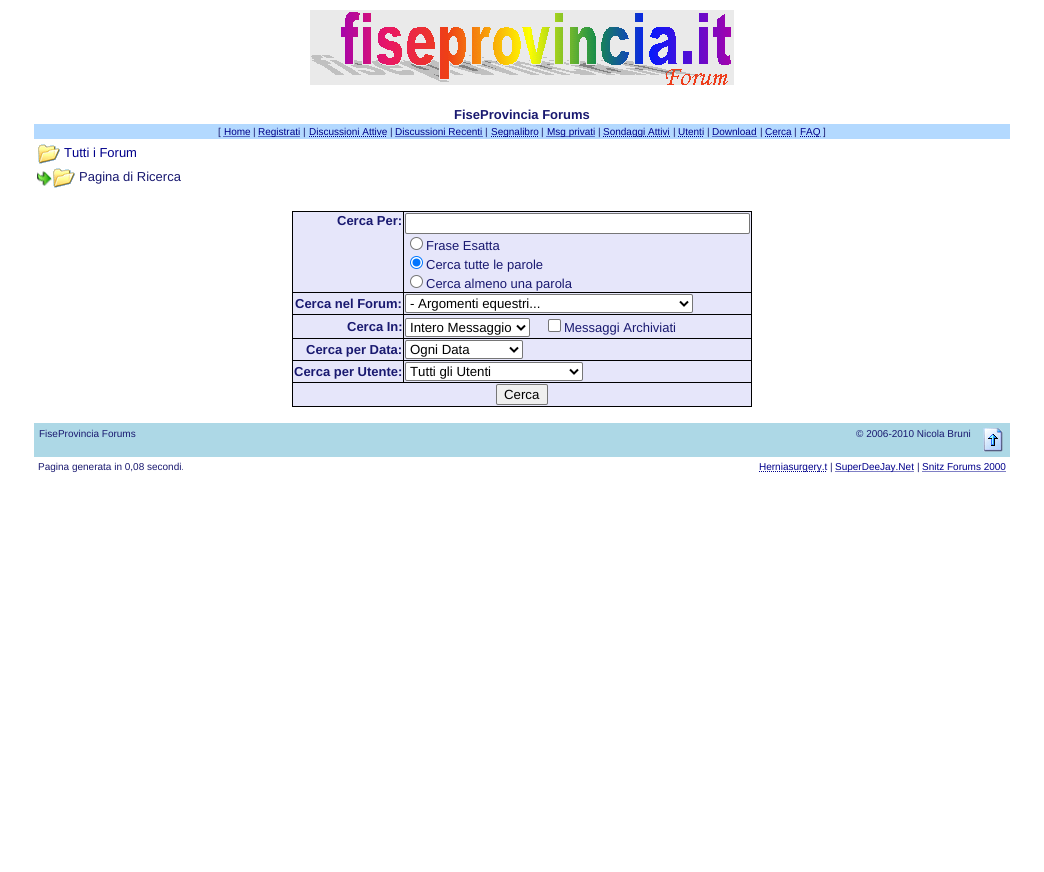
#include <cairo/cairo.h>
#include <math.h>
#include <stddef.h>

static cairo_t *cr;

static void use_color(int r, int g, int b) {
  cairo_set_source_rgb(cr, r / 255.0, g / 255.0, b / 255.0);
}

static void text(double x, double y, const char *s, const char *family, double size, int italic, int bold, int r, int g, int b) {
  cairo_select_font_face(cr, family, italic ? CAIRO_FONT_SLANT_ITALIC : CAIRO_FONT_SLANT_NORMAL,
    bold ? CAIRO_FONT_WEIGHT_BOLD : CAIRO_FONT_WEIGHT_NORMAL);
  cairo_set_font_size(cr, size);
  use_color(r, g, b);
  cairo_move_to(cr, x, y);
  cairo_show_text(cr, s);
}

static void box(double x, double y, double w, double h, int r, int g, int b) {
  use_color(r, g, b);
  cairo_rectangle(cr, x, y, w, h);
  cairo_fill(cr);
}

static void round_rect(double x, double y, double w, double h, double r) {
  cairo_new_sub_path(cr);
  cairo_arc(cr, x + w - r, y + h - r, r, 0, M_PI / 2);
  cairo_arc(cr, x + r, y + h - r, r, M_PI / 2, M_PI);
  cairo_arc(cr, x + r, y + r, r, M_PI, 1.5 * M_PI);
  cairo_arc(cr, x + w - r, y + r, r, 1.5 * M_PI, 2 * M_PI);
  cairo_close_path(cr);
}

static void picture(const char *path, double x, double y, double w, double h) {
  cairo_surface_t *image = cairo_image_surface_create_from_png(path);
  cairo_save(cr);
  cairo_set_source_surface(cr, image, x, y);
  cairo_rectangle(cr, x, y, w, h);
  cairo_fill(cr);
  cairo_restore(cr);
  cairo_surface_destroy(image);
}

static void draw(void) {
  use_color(255, 255, 255);
  cairo_paint(cr);
  picture("img_01.png", 310, 10, 424, 75);
  box(34, 124, 976, 15, 179, 217, 255);
  cairo_new_path(cr);
  cairo_move_to(cr, 223.5, 136.5);
  cairo_line_to(cr, 250, 136.5);
  use_color(0, 0, 139);
  cairo_set_line_width(cr, 1);
  cairo_set_dash(cr, (double[]){1, 1}, 2, 0);
  cairo_stroke(cr);
  cairo_new_path(cr);
  cairo_move_to(cr, 258.5, 136.5);
  cairo_line_to(cr, 300.5, 136.5);
  cairo_stroke(cr);
  cairo_new_path(cr);
  cairo_move_to(cr, 309, 136.5);
  cairo_line_to(cr, 387, 136.5);
  cairo_stroke(cr);
  cairo_new_path(cr);
  cairo_move_to(cr, 395.5, 136.5);
  cairo_line_to(cr, 482.5, 136.5);
  cairo_stroke(cr);
  cairo_new_path(cr);
  cairo_move_to(cr, 491, 136.5);
  cairo_line_to(cr, 538.5, 136.5);
  cairo_stroke(cr);
  cairo_new_path(cr);
  cairo_move_to(cr, 546.5, 136.5);
  cairo_line_to(cr, 595, 136.5);
  cairo_stroke(cr);
  cairo_new_path(cr);
  cairo_move_to(cr, 603, 136.5);
  cairo_line_to(cr, 670, 136.5);
  cairo_stroke(cr);
  cairo_new_path(cr);
  cairo_move_to(cr, 678, 136.5);
  cairo_line_to(cr, 704, 136.5);
  cairo_stroke(cr);
  cairo_new_path(cr);
  cairo_move_to(cr, 712.5, 136.5);
  cairo_line_to(cr, 757, 136.5);
  cairo_stroke(cr);
  cairo_new_path(cr);
  cairo_move_to(cr, 765, 136.5);
  cairo_line_to(cr, 791.5, 136.5);
  cairo_stroke(cr);
  cairo_new_path(cr);
  cairo_move_to(cr, 800, 136.5);
  cairo_line_to(cr, 820.5, 136.5);
  cairo_stroke(cr);
  picture("img_02.png", 38, 144, 22, 20);
  picture("img_03.png", 37, 171, 15, 15);
  picture("img_02.png", 53, 168, 22, 20);
  box(292, 211, 460, 196, 0, 0, 0);
  box(293, 212, 110, 80, 230, 230, 250);
  box(404, 212, 347, 80, 230, 230, 250);
  use_color(255, 255, 255);
  round_rect(405.5, 213.5, 344, 20, 1.5);
  cairo_fill_preserve(cr);
  use_color(118, 118, 118);
  cairo_set_dash(cr, NULL, 0, 0);
  cairo_stroke(cr);
  use_color(255, 255, 255);
  cairo_arc(cr, 416.5, 243.5, 6, 0, 2 * M_PI);
  cairo_fill_preserve(cr);
  use_color(118, 118, 118);
  cairo_stroke(cr);
  use_color(255, 255, 255);
  cairo_arc(cr, 416.5, 262.5, 6, 0, 2 * M_PI);
  cairo_fill_preserve(cr);
  use_color(0, 117, 255);
  cairo_stroke(cr);
  cairo_arc(cr, 416.5, 262.5, 4, 0, 2 * M_PI);
  cairo_fill(cr);
  use_color(255, 255, 255);
  cairo_arc(cr, 416.5, 281.5, 6, 0, 2 * M_PI);
  cairo_fill_preserve(cr);
  use_color(118, 118, 118);
  cairo_stroke(cr);
  box(293, 293, 110, 21, 230, 230, 250);
  box(404, 293, 347, 21, 230, 230, 250);
  use_color(255, 255, 255);
  round_rect(405.5, 294.5, 287, 18, 1.5);
  cairo_fill_preserve(cr);
  use_color(118, 118, 118);
  cairo_stroke(cr);
  cairo_new_path(cr);
  cairo_move_to(cr, 680, 301.5);
  cairo_line_to(cr, 684, 305.5);
  cairo_line_to(cr, 688, 301.5);
  use_color(0, 0, 0);
  cairo_set_line_width(cr, 2);
  cairo_stroke(cr);
  box(293, 315, 110, 23, 230, 230, 250);
  box(404, 315, 347, 23, 230, 230, 250);
  use_color(255, 255, 255);
  round_rect(405.5, 318.5, 124, 18, 1.5);
  cairo_fill_preserve(cr);
  use_color(118, 118, 118);
  cairo_set_line_width(cr, 1);
  cairo_stroke(cr);
  cairo_new_path(cr);
  cairo_move_to(cr, 517, 325.5);
  cairo_line_to(cr, 521, 329.5);
  cairo_line_to(cr, 525, 325.5);
  use_color(0, 0, 0);
  cairo_set_line_width(cr, 2);
  cairo_stroke(cr);
  use_color(255, 255, 255);
  round_rect(548.5, 319.5, 12, 12, 1.5);
  cairo_fill_preserve(cr);
  use_color(118, 118, 118);
  cairo_set_line_width(cr, 1);
  cairo_stroke(cr);
  box(293, 339, 110, 21, 230, 230, 250);
  box(404, 339, 347, 21, 230, 230, 250);
  use_color(255, 255, 255);
  round_rect(405.5, 340.5, 117, 18, 1.5);
  cairo_fill_preserve(cr);
  use_color(118, 118, 118);
  cairo_stroke(cr);
  cairo_new_path(cr);
  cairo_move_to(cr, 510, 347.5);
  cairo_line_to(cr, 514, 351.5);
  cairo_line_to(cr, 518, 347.5);
  use_color(0, 0, 0);
  cairo_set_line_width(cr, 2);
  cairo_stroke(cr);
  box(293, 361, 110, 21, 230, 230, 250);
  box(404, 361, 347, 21, 230, 230, 250);
  use_color(255, 255, 255);
  round_rect(405.5, 362.5, 177, 18, 1.5);
  cairo_fill_preserve(cr);
  use_color(118, 118, 118);
  cairo_set_line_width(cr, 1);
  cairo_stroke(cr);
  cairo_new_path(cr);
  cairo_move_to(cr, 570, 369.5);
  cairo_line_to(cr, 574, 373.5);
  cairo_line_to(cr, 578, 369.5);
  use_color(0, 0, 0);
  cairo_set_line_width(cr, 2);
  cairo_stroke(cr);
  box(293, 383, 458, 23, 230, 230, 250);
  use_color(239, 239, 239);
  round_rect(496.5, 384.5, 51, 20, 1.5);
  cairo_fill_preserve(cr);
  use_color(118, 118, 118);
  cairo_set_line_width(cr, 1);
  cairo_stroke(cr);
  box(34, 423, 976, 34, 173, 216, 230);
  picture("img_04.png", 983, 428, 20, 24);
  cairo_new_path(cr);
  cairo_move_to(cr, 759, 471.5);
  cairo_line_to(cr, 827, 471.5);
  use_color(0, 0, 139);
  cairo_set_dash(cr, (double[]){1, 1}, 2, 0);
  cairo_stroke(cr);
  cairo_new_path(cr);
  cairo_move_to(cr, 835.5, 471.5);
  cairo_line_to(cr, 914, 471.5);
  cairo_stroke(cr);
  cairo_new_path(cr);
  cairo_move_to(cr, 922.5, 471.5);
  cairo_line_to(cr, 1006.5, 471.5);
  cairo_stroke(cr);
  text(454, 119, "FiseProvincia Forums", "Liberation Sans", 13, 0, 1, 25, 25, 112);
  text(218, 135, "[", "Liberation Sans", 10, 0, 0, 25, 25, 112);
  text(224, 135, "Home", "Liberation Sans", 10, 0, 0, 0, 0, 139);
  text(253, 135, "|", "Liberation Sans", 10, 0, 0, 25, 25, 112);
  text(258, 135, "Registrati", "Liberation Sans", 10, 0, 0, 0, 0, 139);
  text(303, 135, "|", "Liberation Sans", 10, 0, 0, 25, 25, 112);
  text(309, 135, "Discussioni Attive", "Liberation Sans", 10, 0, 0, 0, 0, 139);
  text(390, 135, "|", "Liberation Sans", 10, 0, 0, 25, 25, 112);
  text(395, 135, "Discussioni Recenti", "Liberation Sans", 10, 0, 0, 0, 0, 139);
  text(485, 135, "|", "Liberation Sans", 10, 0, 0, 25, 25, 112);
  text(491, 135, "Segnalibro", "Liberation Sans", 10, 0, 0, 0, 0, 139);
  text(541, 135, "|", "Liberation Sans", 10, 0, 0, 25, 25, 112);
  text(547, 135, "Msg privati", "Liberation Sans", 10, 0, 0, 0, 0, 139);
  text(598, 135, "|", "Liberation Sans", 10, 0, 0, 25, 25, 112);
  text(603, 135, "Sondaggi Attivi", "Liberation Sans", 10, 0, 0, 0, 0, 139);
  text(673, 135, "|", "Liberation Sans", 10, 0, 0, 25, 25, 112);
  text(678, 135, "Utenti", "Liberation Sans", 10, 0, 0, 0, 0, 139);
  text(707, 135, "|", "Liberation Sans", 10, 0, 0, 25, 25, 112);
  text(712, 135, "Download", "Liberation Sans", 10, 0, 0, 0, 0, 139);
  text(760, 135, "|", "Liberation Sans", 10, 0, 0, 25, 25, 112);
  text(765, 135, "Cerca", "Liberation Sans", 10, 0, 0, 0, 0, 139);
  text(794, 135, "|", "Liberation Sans", 10, 0, 0, 25, 25, 112);
  text(800, 135, "FAQ", "Liberation Sans", 10, 0, 0, 0, 0, 139);
  text(823, 135, "]", "Liberation Sans", 10, 0, 0, 25, 25, 112);
  text(64, 157, "Tutti i Forum", "Liberation Sans", 13, 0, 0, 0, 0, 139);
  text(79, 181, "Pagina di Ricerca", "Liberation Sans", 13, 0, 0, 25, 25, 112);
  text(337, 225, "Cerca Per:", "Liberation Sans", 13, 0, 1, 25, 25, 112);
  text(426, 250, "Frase Esatta", "Liberation Sans", 13, 0, 0, 25, 25, 112);
  text(426, 269, "Cerca tutte le parole", "Liberation Sans", 13, 0, 0, 25, 25, 112);
  text(426, 288, "Cerca almeno una parola", "Liberation Sans", 13, 0, 0, 25, 25, 112);
  text(295, 308, "Cerca nel Forum:", "Liberation Sans", 13, 0, 1, 25, 25, 112);
  text(410, 308, "- Argomenti equestri...", "Liberation Sans", 13.25, 0, 0, 0, 0, 0);
  text(347, 331, "Cerca In:", "Liberation Sans", 13, 0, 1, 25, 25, 112);
  text(410, 332, "Intero Messaggio", "Liberation Sans", 13.25, 0, 0, 0, 0, 0);
  text(564, 332, "Messaggi Archiviati", "Liberation Sans", 13, 0, 0, 25, 25, 112);
  text(306, 354, "Cerca per Data:", "Liberation Sans", 13, 0, 1, 25, 25, 112);
  text(410, 354, "Ogni Data", "Liberation Sans", 13.25, 0, 0, 0, 0, 0);
  text(294, 376, "Cerca per Utente:", "Liberation Sans", 13, 0, 1, 25, 25, 112);
  text(410, 376, "Tutti gli Utenti", "Liberation Sans", 13.25, 0, 0, 0, 0, 0);
  text(504, 399, "Cerca", "Liberation Sans", 13.25, 0, 0, 0, 0, 0);
  text(39, 437, "FiseProvincia Forums", "Liberation Sans", 10, 0, 0, 25, 25, 112);
  text(856, 437, "© 2006-2010 Nicola Bruni", "Liberation Sans", 10, 0, 0, 25, 25, 112);
  text(38, 470, "Pagina generata in 0,08 secondi.", "Liberation Sans", 10, 0, 0, 25, 25, 112);
  text(759, 470, "Herniasurgery.t", "Liberation Sans", 10, 0, 0, 0, 0, 139);
  text(830, 470, "|", "Liberation Sans", 10, 0, 0, 25, 25, 112);
  text(835, 470, "SuperDeeJay.Net", "Liberation Sans", 10, 0, 0, 0, 0, 139);
  text(917, 470, "|", "Liberation Sans", 10, 0, 0, 25, 25, 112);
  text(922, 470, "Snitz Forums 2000", "Liberation Sans", 10, 0, 0, 0, 0, 139);
}

int main(void) {
  cairo_surface_t *surface = cairo_image_surface_create(CAIRO_FORMAT_RGB24, 1044, 872);
  cr = cairo_create(surface);
  cairo_font_options_t *options = cairo_font_options_create();
  cairo_font_options_set_hint_metrics(options, CAIRO_HINT_METRICS_OFF);
  cairo_font_options_set_hint_style(options, CAIRO_HINT_STYLE_NONE);
  cairo_set_font_options(cr, options);
  cairo_set_miter_limit(cr, 4);
  draw();
  cairo_surface_write_to_png(surface, "out.png");
  cairo_font_options_destroy(options);
  cairo_destroy(cr);
  cairo_surface_destroy(surface);
  return 0;
}
